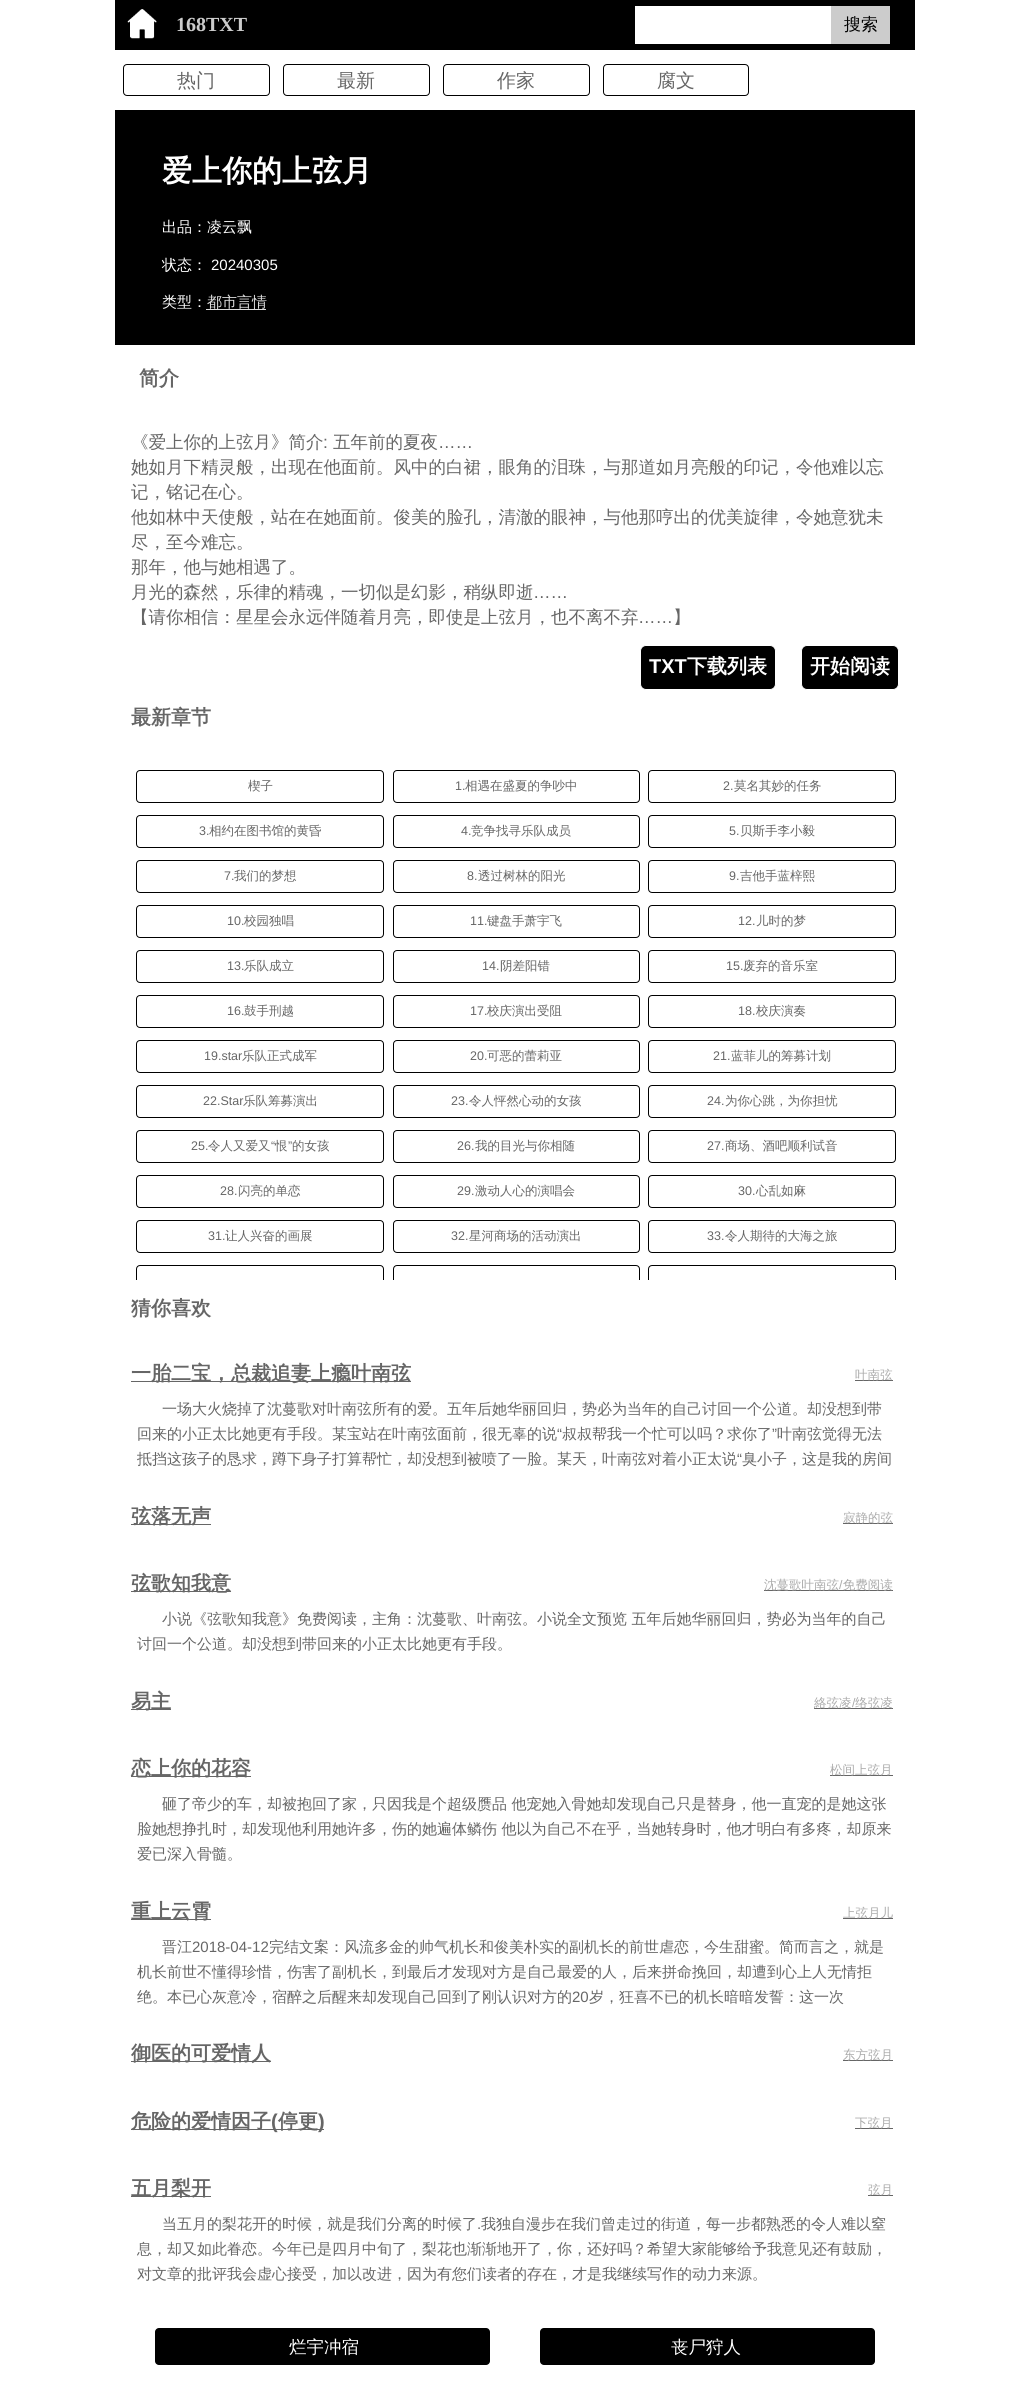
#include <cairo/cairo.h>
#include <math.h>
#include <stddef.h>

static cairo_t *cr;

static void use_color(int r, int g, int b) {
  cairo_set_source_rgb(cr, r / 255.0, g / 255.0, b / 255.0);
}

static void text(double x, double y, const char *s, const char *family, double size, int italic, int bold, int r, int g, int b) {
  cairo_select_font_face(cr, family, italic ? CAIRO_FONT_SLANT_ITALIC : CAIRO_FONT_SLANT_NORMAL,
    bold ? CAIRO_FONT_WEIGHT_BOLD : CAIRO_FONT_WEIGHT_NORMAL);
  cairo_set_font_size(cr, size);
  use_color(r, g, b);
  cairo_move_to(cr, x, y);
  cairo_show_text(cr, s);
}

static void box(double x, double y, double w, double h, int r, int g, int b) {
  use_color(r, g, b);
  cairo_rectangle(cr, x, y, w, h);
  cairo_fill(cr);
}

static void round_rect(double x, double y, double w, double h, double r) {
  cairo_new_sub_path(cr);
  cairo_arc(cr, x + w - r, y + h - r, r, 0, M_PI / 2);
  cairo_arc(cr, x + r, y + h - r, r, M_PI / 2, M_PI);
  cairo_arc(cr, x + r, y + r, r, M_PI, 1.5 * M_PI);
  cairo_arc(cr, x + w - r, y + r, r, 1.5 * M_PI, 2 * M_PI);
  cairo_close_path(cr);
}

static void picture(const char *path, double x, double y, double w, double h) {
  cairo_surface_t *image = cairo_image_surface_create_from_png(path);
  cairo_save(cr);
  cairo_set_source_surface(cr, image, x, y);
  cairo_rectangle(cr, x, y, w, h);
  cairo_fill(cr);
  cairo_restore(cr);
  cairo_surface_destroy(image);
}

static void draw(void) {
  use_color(255, 255, 255);
  cairo_paint(cr);
  box(115, 0, 800, 50, 0, 0, 0);
  picture("img_01.png", 127, 9, 30, 30);
  box(635, 6, 196, 38, 255, 255, 255);
  box(831, 6, 59, 38, 204, 204, 204);
  round_rect(123.5, 64.5, 146, 31, 3.5);
  use_color(0, 0, 0);
  cairo_set_line_width(cr, 1);
  cairo_stroke(cr);
  round_rect(283.5, 64.5, 146, 31, 3.5);
  cairo_stroke(cr);
  round_rect(443.5, 64.5, 146, 31, 3.5);
  cairo_stroke(cr);
  round_rect(603.5, 64.5, 145, 31, 3.5);
  cairo_stroke(cr);
  box(115, 110, 800, 235, 0, 0, 0);
  box(206, 309, 60, 1, 221, 221, 221);
  use_color(0, 0, 0);
  round_rect(640.5, 645.5, 135, 44, 5.5);
  cairo_fill_preserve(cr);
  use_color(255, 255, 255);
  cairo_stroke(cr);
  use_color(0, 0, 0);
  round_rect(801.5, 645.5, 97, 44, 5.5);
  cairo_fill_preserve(cr);
  use_color(255, 255, 255);
  cairo_stroke(cr);
  round_rect(136.5, 770.5, 247, 32, 3.5);
  use_color(0, 0, 0);
  cairo_stroke(cr);
  round_rect(393.5, 770.5, 246, 32, 3.5);
  cairo_stroke(cr);
  round_rect(648.5, 770.5, 247, 32, 3.5);
  cairo_stroke(cr);
  round_rect(136.5, 815.5, 247, 32, 3.5);
  cairo_stroke(cr);
  round_rect(393.5, 815.5, 246, 32, 3.5);
  cairo_stroke(cr);
  round_rect(648.5, 815.5, 247, 32, 3.5);
  cairo_stroke(cr);
  round_rect(136.5, 860.5, 247, 32, 3.5);
  cairo_stroke(cr);
  round_rect(393.5, 860.5, 246, 32, 3.5);
  cairo_stroke(cr);
  round_rect(648.5, 860.5, 247, 32, 3.5);
  cairo_stroke(cr);
  round_rect(136.5, 905.5, 247, 32, 3.5);
  cairo_stroke(cr);
  round_rect(393.5, 905.5, 246, 32, 3.5);
  cairo_stroke(cr);
  round_rect(648.5, 905.5, 247, 32, 3.5);
  cairo_stroke(cr);
  round_rect(136.5, 950.5, 247, 32, 3.5);
  cairo_stroke(cr);
  round_rect(393.5, 950.5, 246, 32, 3.5);
  cairo_stroke(cr);
  round_rect(648.5, 950.5, 247, 32, 3.5);
  cairo_stroke(cr);
  round_rect(136.5, 995.5, 247, 32, 3.5);
  cairo_stroke(cr);
  round_rect(393.5, 995.5, 246, 32, 3.5);
  cairo_stroke(cr);
  round_rect(648.5, 995.5, 247, 32, 3.5);
  cairo_stroke(cr);
  round_rect(136.5, 1040.5, 247, 32, 3.5);
  cairo_stroke(cr);
  round_rect(393.5, 1040.5, 246, 32, 3.5);
  cairo_stroke(cr);
  round_rect(648.5, 1040.5, 247, 32, 3.5);
  cairo_stroke(cr);
  round_rect(136.5, 1085.5, 247, 32, 3.5);
  cairo_stroke(cr);
  round_rect(393.5, 1085.5, 246, 32, 3.5);
  cairo_stroke(cr);
  round_rect(648.5, 1085.5, 247, 32, 3.5);
  cairo_stroke(cr);
  round_rect(136.5, 1130.5, 247, 32, 3.5);
  cairo_stroke(cr);
  round_rect(393.5, 1130.5, 246, 32, 3.5);
  cairo_stroke(cr);
  round_rect(648.5, 1130.5, 247, 32, 3.5);
  cairo_stroke(cr);
  round_rect(136.5, 1175.5, 247, 32, 3.5);
  cairo_stroke(cr);
  round_rect(393.5, 1175.5, 246, 32, 3.5);
  cairo_stroke(cr);
  round_rect(648.5, 1175.5, 247, 32, 3.5);
  cairo_stroke(cr);
  round_rect(136.5, 1220.5, 247, 32, 3.5);
  cairo_stroke(cr);
  round_rect(393.5, 1220.5, 246, 32, 3.5);
  cairo_stroke(cr);
  round_rect(648.5, 1220.5, 247, 32, 3.5);
  cairo_stroke(cr);
  cairo_save(cr);
  cairo_rectangle(cr, 131, 1265, 257, 15);
  cairo_clip(cr);
  round_rect(136.5, 1265.5, 247, 32, 3.5);
  cairo_stroke(cr);
  cairo_restore(cr);
  cairo_save(cr);
  cairo_rectangle(cr, 388, 1265, 255, 15);
  cairo_clip(cr);
  round_rect(393.5, 1265.5, 246, 32, 3.5);
  cairo_stroke(cr);
  cairo_restore(cr);
  cairo_save(cr);
  cairo_rectangle(cr, 643, 1265, 256, 15);
  cairo_clip(cr);
  round_rect(648.5, 1265.5, 247, 32, 3.5);
  cairo_stroke(cr);
  cairo_restore(cr);
  box(131, 1381, 280, 1, 102, 102, 102);
  box(855, 1380, 38, 1, 102, 102, 102);
  box(131, 1524, 80, 1, 102, 102, 102);
  box(843, 1523, 50, 1, 102, 102, 102);
  box(131, 1591, 100, 1, 102, 102, 102);
  box(764, 1590, 129, 1, 102, 102, 102);
  box(131, 1709, 40, 1, 102, 102, 102);
  box(814, 1708, 79, 1, 102, 102, 102);
  box(131, 1776, 120, 1, 102, 102, 102);
  box(830, 1775, 63, 1, 102, 102, 102);
  box(131, 1919, 80, 1, 102, 102, 102);
  box(843, 1918, 50, 1, 102, 102, 102);
  box(131, 2061, 140, 1, 102, 102, 102);
  box(843, 2060, 50, 1, 102, 102, 102);
  box(131, 2129, 193, 1, 102, 102, 102);
  box(855, 2128, 38, 1, 102, 102, 102);
  box(131, 2196, 80, 1, 102, 102, 102);
  box(868, 2195, 25, 1, 102, 102, 102);
  use_color(0, 0, 0);
  round_rect(155, 2328, 335, 37, 4);
  cairo_fill(cr);
  round_rect(540, 2328, 335, 37, 4);
  cairo_fill(cr);
  text(176, 31, "168TXT", "Liberation Serif", 20, 0, 1, 204, 204, 204);
  text(844, 30, "搜索", "WenQuanYi Zen Hei Medium", 17, 0, 0, 0, 0, 0);
  text(177, 87, "热门", "WenQuanYi Zen Hei Medium", 19, 0, 0, 102, 102, 102);
  text(337, 87, "最新", "WenQuanYi Zen Hei Medium", 19, 0, 0, 102, 102, 102);
  text(497, 87, "作家", "WenQuanYi Zen Hei Medium", 19, 0, 0, 102, 102, 102);
  text(657, 87, "腐文", "WenQuanYi Zen Hei Medium", 19, 0, 0, 102, 102, 102);
  text(162, 181, "爱上你的上弦月", "WenQuanYi Zen Hei", 30, 0, 1, 255, 255, 255);
  text(162, 232, "出品：凌云飘", "WenQuanYi Zen Hei Medium", 15, 0, 0, 255, 255, 255);
  text(162, 270, "状态：", "WenQuanYi Zen Hei Medium", 15, 0, 0, 255, 255, 255);
  text(211, 270, "20240305", "Liberation Sans", 15, 0, 0, 255, 255, 255);
  text(162, 307, "类型：", "WenQuanYi Zen Hei Medium", 15, 0, 0, 255, 255, 255);
  text(207, 307, "都市言情", "WenQuanYi Zen Hei Medium", 15, 0, 0, 221, 221, 221);
  text(139, 385, "简介", "WenQuanYi Zen Hei", 20, 0, 1, 102, 102, 102);
  text(131, 448, "《爱上你的上弦月》简介", "WenQuanYi Zen Hei Medium", 17.5, 0, 0, 102, 102, 102);
  text(323, 448, ":", "Liberation Sans", 17.5, 0, 0, 102, 102, 102);
  text(333, 448, "五年前的夏夜", "WenQuanYi Zen Hei Medium", 17.5, 0, 0, 102, 102, 102);
  text(438, 448, "……", "Liberation Sans", 17.5, 0, 0, 102, 102, 102);
  text(131, 473, "她如月下精灵般，出现在他面前。风中的白裙，眼角的泪珠，与那道如月亮般的印记，令他难以忘", "WenQuanYi Zen Hei Medium", 17.5, 0, 0, 102, 102, 102);
  text(131, 498, "记，铭记在心。", "WenQuanYi Zen Hei Medium", 17.5, 0, 0, 102, 102, 102);
  text(131, 523, "他如林中天使般，站在在她面前。俊美的脸孔，清澈的眼神，与他那哼出的优美旋律，令她意犹未", "WenQuanYi Zen Hei Medium", 17.5, 0, 0, 102, 102, 102);
  text(131, 548, "尽，至今难忘。", "WenQuanYi Zen Hei Medium", 17.5, 0, 0, 102, 102, 102);
  text(131, 573, "那年，他与她相遇了。", "WenQuanYi Zen Hei Medium", 17.5, 0, 0, 102, 102, 102);
  text(131, 598, "月光的森然，乐律的精魂，一切似是幻影，稍纵即逝", "WenQuanYi Zen Hei Medium", 17.5, 0, 0, 102, 102, 102);
  text(533, 598, "……", "Liberation Sans", 17.5, 0, 0, 102, 102, 102);
  text(131, 623, "【请你相信：星星会永远伴随着月亮，即使是上弦月，也不离不弃", "WenQuanYi Zen Hei Medium", 17.5, 0, 0, 102, 102, 102);
  text(638, 623, "……", "Liberation Sans", 17.5, 0, 0, 102, 102, 102);
  text(673, 623, "】", "WenQuanYi Zen Hei Medium", 17.5, 0, 0, 102, 102, 102);
  text(649, 673, "TXT", "Liberation Sans", 20, 0, 1, 255, 255, 255);
  text(687, 673, "下载列表", "WenQuanYi Zen Hei", 20, 0, 1, 255, 255, 255);
  text(810, 673, "开始阅读", "WenQuanYi Zen Hei", 20, 0, 1, 255, 255, 255);
  text(131, 724, "最新章节", "WenQuanYi Zen Hei", 20, 0, 1, 102, 102, 102);
  text(248, 790, "楔子", "WenQuanYi Zen Hei Medium", 12.5, 0, 0, 102, 102, 102);
  text(455, 790, "1.", "Liberation Sans", 12.5, 0, 0, 102, 102, 102);
  text(465, 790, "相遇在盛夏的争吵中", "WenQuanYi Zen Hei Medium", 12.5, 0, 0, 102, 102, 102);
  text(723, 790, "2.", "Liberation Sans", 12.5, 0, 0, 102, 102, 102);
  text(734, 790, "莫名其妙的任务", "WenQuanYi Zen Hei Medium", 12.5, 0, 0, 102, 102, 102);
  text(199, 835, "3.", "Liberation Sans", 12.5, 0, 0, 102, 102, 102);
  text(209, 835, "相约在图书馆的黄昏", "WenQuanYi Zen Hei Medium", 12.5, 0, 0, 102, 102, 102);
  text(461, 835, "4.", "Liberation Sans", 12.5, 0, 0, 102, 102, 102);
  text(471, 835, "竞争找寻乐队成员", "WenQuanYi Zen Hei Medium", 12.5, 0, 0, 102, 102, 102);
  text(729, 835, "5.", "Liberation Sans", 12.5, 0, 0, 102, 102, 102);
  text(740, 835, "贝斯手李小毅", "WenQuanYi Zen Hei Medium", 12.5, 0, 0, 102, 102, 102);
  text(224, 880, "7.", "Liberation Sans", 12.5, 0, 0, 102, 102, 102);
  text(234, 880, "我们的梦想", "WenQuanYi Zen Hei Medium", 12.5, 0, 0, 102, 102, 102);
  text(467, 880, "8.", "Liberation Sans", 12.5, 0, 0, 102, 102, 102);
  text(478, 880, "透过树林的阳光", "WenQuanYi Zen Hei Medium", 12.5, 0, 0, 102, 102, 102);
  text(729, 880, "9.", "Liberation Sans", 12.5, 0, 0, 102, 102, 102);
  text(740, 880, "吉他手蓝梓熙", "WenQuanYi Zen Hei Medium", 12.5, 0, 0, 102, 102, 102);
  text(227, 925, "10.", "Liberation Sans", 12.5, 0, 0, 102, 102, 102);
  text(244, 925, "校园独唱", "WenQuanYi Zen Hei Medium", 12.5, 0, 0, 102, 102, 102);
  text(470, 925, "11.", "Liberation Sans", 12.5, 0, 0, 102, 102, 102);
  text(487, 925, "键盘手萧宇飞", "WenQuanYi Zen Hei Medium", 12.5, 0, 0, 102, 102, 102);
  text(738, 925, "12.", "Liberation Sans", 12.5, 0, 0, 102, 102, 102);
  text(756, 925, "儿时的梦", "WenQuanYi Zen Hei Medium", 12.5, 0, 0, 102, 102, 102);
  text(227, 970, "13.", "Liberation Sans", 12.5, 0, 0, 102, 102, 102);
  text(244, 970, "乐队成立", "WenQuanYi Zen Hei Medium", 12.5, 0, 0, 102, 102, 102);
  text(482, 970, "14.", "Liberation Sans", 12.5, 0, 0, 102, 102, 102);
  text(500, 970, "阴差阳错", "WenQuanYi Zen Hei Medium", 12.5, 0, 0, 102, 102, 102);
  text(726, 970, "15.", "Liberation Sans", 12.5, 0, 0, 102, 102, 102);
  text(743, 970, "废弃的音乐室", "WenQuanYi Zen Hei Medium", 12.5, 0, 0, 102, 102, 102);
  text(227, 1015, "16.", "Liberation Sans", 12.5, 0, 0, 102, 102, 102);
  text(244, 1015, "鼓手刑越", "WenQuanYi Zen Hei Medium", 12.5, 0, 0, 102, 102, 102);
  text(470, 1015, "17.", "Liberation Sans", 12.5, 0, 0, 102, 102, 102);
  text(487, 1015, "校庆演出受阻", "WenQuanYi Zen Hei Medium", 12.5, 0, 0, 102, 102, 102);
  text(738, 1015, "18.", "Liberation Sans", 12.5, 0, 0, 102, 102, 102);
  text(756, 1015, "校庆演奏", "WenQuanYi Zen Hei Medium", 12.5, 0, 0, 102, 102, 102);
  text(204, 1060, "19.star", "Liberation Sans", 12.5, 0, 0, 102, 102, 102);
  text(242, 1060, "乐队正式成军", "WenQuanYi Zen Hei Medium", 12.5, 0, 0, 102, 102, 102);
  text(470, 1060, "20.", "Liberation Sans", 12.5, 0, 0, 102, 102, 102);
  text(487, 1060, "可恶的蕾莉亚", "WenQuanYi Zen Hei Medium", 12.5, 0, 0, 102, 102, 102);
  text(713, 1060, "21.", "Liberation Sans", 12.5, 0, 0, 102, 102, 102);
  text(731, 1060, "蓝菲儿的筹募计划", "WenQuanYi Zen Hei Medium", 12.5, 0, 0, 102, 102, 102);
  text(203, 1105, "22.Star", "Liberation Sans", 12.5, 0, 0, 102, 102, 102);
  text(243, 1105, "乐队筹募演出", "WenQuanYi Zen Hei Medium", 12.5, 0, 0, 102, 102, 102);
  text(451, 1105, "23.", "Liberation Sans", 12.5, 0, 0, 102, 102, 102);
  text(469, 1105, "令人怦然心动的女孩", "WenQuanYi Zen Hei Medium", 12.5, 0, 0, 102, 102, 102);
  text(707, 1105, "24.", "Liberation Sans", 12.5, 0, 0, 102, 102, 102);
  text(725, 1105, "为你心跳，为你担忧", "WenQuanYi Zen Hei Medium", 12.5, 0, 0, 102, 102, 102);
  text(191, 1150, "25.", "Liberation Sans", 12.5, 0, 0, 102, 102, 102);
  text(208, 1150, "令人又爱又", "WenQuanYi Zen Hei Medium", 12.5, 0, 0, 102, 102, 102);
  text(271, 1150, "“", "Liberation Sans", 12.5, 0, 0, 102, 102, 102);
  text(275, 1150, "恨", "WenQuanYi Zen Hei Medium", 12.5, 0, 0, 102, 102, 102);
  text(288, 1150, "”", "Liberation Sans", 12.5, 0, 0, 102, 102, 102);
  text(292, 1150, "的女孩", "WenQuanYi Zen Hei Medium", 12.5, 0, 0, 102, 102, 102);
  text(457, 1150, "26.", "Liberation Sans", 12.5, 0, 0, 102, 102, 102);
  text(475, 1150, "我的目光与你相随", "WenQuanYi Zen Hei Medium", 12.5, 0, 0, 102, 102, 102);
  text(707, 1150, "27.", "Liberation Sans", 12.5, 0, 0, 102, 102, 102);
  text(725, 1150, "商场、酒吧顺利试音", "WenQuanYi Zen Hei Medium", 12.5, 0, 0, 102, 102, 102);
  text(220, 1195, "28.", "Liberation Sans", 12.5, 0, 0, 102, 102, 102);
  text(238, 1195, "闪亮的单恋", "WenQuanYi Zen Hei Medium", 12.5, 0, 0, 102, 102, 102);
  text(457, 1195, "29.", "Liberation Sans", 12.5, 0, 0, 102, 102, 102);
  text(475, 1195, "激动人心的演唱会", "WenQuanYi Zen Hei Medium", 12.5, 0, 0, 102, 102, 102);
  text(738, 1195, "30.", "Liberation Sans", 12.5, 0, 0, 102, 102, 102);
  text(756, 1195, "心乱如麻", "WenQuanYi Zen Hei Medium", 12.5, 0, 0, 102, 102, 102);
  text(208, 1240, "31.", "Liberation Sans", 12.5, 0, 0, 102, 102, 102);
  text(225, 1240, "让人兴奋的画展", "WenQuanYi Zen Hei Medium", 12.5, 0, 0, 102, 102, 102);
  text(451, 1240, "32.", "Liberation Sans", 12.5, 0, 0, 102, 102, 102);
  text(469, 1240, "星河商场的活动演出", "WenQuanYi Zen Hei Medium", 12.5, 0, 0, 102, 102, 102);
  text(707, 1240, "33.", "Liberation Sans", 12.5, 0, 0, 102, 102, 102);
  text(725, 1240, "令人期待的大海之旅", "WenQuanYi Zen Hei Medium", 12.5, 0, 0, 102, 102, 102);
  text(131, 1315, "猜你喜欢", "WenQuanYi Zen Hei", 20, 0, 1, 102, 102, 102);
  text(131, 1380, "一胎二宝，总裁追妻上瘾叶南弦", "WenQuanYi Zen Hei", 20, 0, 1, 102, 102, 102);
  text(855, 1379, "叶南弦", "WenQuanYi Zen Hei Medium", 12.5, 0, 0, 170, 170, 170);
  text(162, 1414, "一场大火烧掉了沈蔓歌对叶南弦所有的爱。五年后她华丽回归，势必为当年的自己讨回一个公道。却没想到带", "WenQuanYi Zen Hei Medium", 15, 0, 0, 102, 102, 102);
  text(137, 1439, "回来的小正太比她更有手段。某宝站在叶南弦面前，很无辜的说", "WenQuanYi Zen Hei Medium", 15, 0, 0, 102, 102, 102);
  text(557, 1439, "“", "Liberation Sans", 15, 0, 0, 102, 102, 102);
  text(562, 1439, "叔叔帮我一个忙可以吗？求你了", "WenQuanYi Zen Hei Medium", 15, 0, 0, 102, 102, 102);
  text(772, 1439, "”", "Liberation Sans", 15, 0, 0, 102, 102, 102);
  text(777, 1439, "叶南弦觉得无法", "WenQuanYi Zen Hei Medium", 15, 0, 0, 102, 102, 102);
  text(137, 1464, "抵挡这孩子的恳求，蹲下身子打算帮忙，却没想到被喷了一脸。某天，叶南弦对着小正太说", "WenQuanYi Zen Hei Medium", 15, 0, 0, 102, 102, 102);
  text(737, 1464, "“", "Liberation Sans", 15, 0, 0, 102, 102, 102);
  text(742, 1464, "臭小子，这是我的房间", "WenQuanYi Zen Hei Medium", 15, 0, 0, 102, 102, 102);
  text(131, 1523, "弦落无声", "WenQuanYi Zen Hei", 20, 0, 1, 102, 102, 102);
  text(843, 1522, "寂静的弦", "WenQuanYi Zen Hei Medium", 12.5, 0, 0, 170, 170, 170);
  text(131, 1590, "弦歌知我意", "WenQuanYi Zen Hei", 20, 0, 1, 102, 102, 102);
  text(764, 1589, "沈蔓歌叶南弦 免费阅读", "WenQuanYi Zen Hei Medium", 12.5, 0, 0, 170, 170, 170);
  text(839, 1589, "/", "Liberation Sans", 12.5, 0, 0, 170, 170, 170);
  text(162, 1624, "小说《弦歌知我意》免费阅读，主角：沈蔓歌、叶南弦。小说全文预览 五年后她华丽回归，势必为当年的自己", "WenQuanYi Zen Hei Medium", 15, 0, 0, 102, 102, 102);
  text(137, 1649, "讨回一个公道。却没想到带回来的小正太比她更有手段。", "WenQuanYi Zen Hei Medium", 15, 0, 0, 102, 102, 102);
  text(131, 1708, "易主", "WenQuanYi Zen Hei", 20, 0, 1, 102, 102, 102);
  text(814, 1707, "絡弦凌 络弦凌", "WenQuanYi Zen Hei Medium", 12.5, 0, 0, 170, 170, 170);
  text(852, 1707, "/", "Liberation Sans", 12.5, 0, 0, 170, 170, 170);
  text(131, 1775, "恋上你的花容", "WenQuanYi Zen Hei", 20, 0, 1, 102, 102, 102);
  text(830, 1774, "松间上弦月", "WenQuanYi Zen Hei Medium", 12.5, 0, 0, 170, 170, 170);
  text(162, 1809, "砸了帝少的车，却被抱回了家，只因我是个超级赝品 他宠她入骨她却发现自己只是替身，他一直宠的是她这张", "WenQuanYi Zen Hei Medium", 15, 0, 0, 102, 102, 102);
  text(137, 1834, "脸她想挣扎时，却发现他利用她许多，伤的她遍体鳞伤 他以为自己不在乎，当她转身时，他才明白有多疼，却原来", "WenQuanYi Zen Hei Medium", 15, 0, 0, 102, 102, 102);
  text(137, 1859, "爱已深入骨髓。", "WenQuanYi Zen Hei Medium", 15, 0, 0, 102, 102, 102);
  text(131, 1918, "重上云霄", "WenQuanYi Zen Hei", 20, 0, 1, 102, 102, 102);
  text(843, 1917, "上弦月儿", "WenQuanYi Zen Hei Medium", 12.5, 0, 0, 170, 170, 170);
  text(162, 1952, "晋江", "WenQuanYi Zen Hei Medium", 15, 0, 0, 102, 102, 102);
  text(192, 1952, "2018-04-12", "Liberation Sans", 15, 0, 0, 102, 102, 102);
  text(269, 1952, "完结文案：风流多金的帅气机长和俊美朴实的副机长的前世虐恋，今生甜蜜。简而言之，就是", "WenQuanYi Zen Hei Medium", 15, 0, 0, 102, 102, 102);
  text(137, 1977, "机长前世不懂得珍惜，伤害了副机长，到最后才发现对方是自己最爱的人，后来拼命挽回，却遭到心上人无情拒", "WenQuanYi Zen Hei Medium", 15, 0, 0, 102, 102, 102);
  text(137, 2002, "绝。本已心灰意冷，宿醉之后醒来却发现自己回到了刚认识对方的", "WenQuanYi Zen Hei Medium", 15, 0, 0, 102, 102, 102);
  text(572, 2002, "20", "Liberation Sans", 15, 0, 0, 102, 102, 102);
  text(589, 2002, "岁，狂喜不已的机长暗暗发誓：这一次", "WenQuanYi Zen Hei Medium", 15, 0, 0, 102, 102, 102);
  text(131, 2060, "御医的可爱情人", "WenQuanYi Zen Hei", 20, 0, 1, 102, 102, 102);
  text(843, 2059, "东方弦月", "WenQuanYi Zen Hei Medium", 12.5, 0, 0, 170, 170, 170);
  text(131, 2128, "危险的爱情因子", "WenQuanYi Zen Hei", 20, 0, 1, 102, 102, 102);
  text(271, 2128, "(", "Liberation Sans", 20, 0, 1, 102, 102, 102);
  text(278, 2128, "停更", "WenQuanYi Zen Hei", 20, 0, 1, 102, 102, 102);
  text(318, 2128, ")", "Liberation Sans", 20, 0, 1, 102, 102, 102);
  text(855, 2127, "下弦月", "WenQuanYi Zen Hei Medium", 12.5, 0, 0, 170, 170, 170);
  text(131, 2195, "五月梨开", "WenQuanYi Zen Hei", 20, 0, 1, 102, 102, 102);
  text(868, 2194, "弦月", "WenQuanYi Zen Hei Medium", 12.5, 0, 0, 170, 170, 170);
  text(162, 2229, "当五月的梨花开的时候，就是我们分离的时候了", "WenQuanYi Zen Hei Medium", 15, 0, 0, 102, 102, 102);
  text(477, 2229, ".", "Liberation Sans", 15, 0, 0, 102, 102, 102);
  text(481, 2229, "我独自漫步在我们曾走过的街道，每一步都熟悉的令人难以窒", "WenQuanYi Zen Hei Medium", 15, 0, 0, 102, 102, 102);
  text(137, 2254, "息，却又如此眷恋。今年已是四月中旬了，梨花也渐渐地开了，你，还好吗？希望大家能够给予我意见还有鼓励，", "WenQuanYi Zen Hei Medium", 15, 0, 0, 102, 102, 102);
  text(137, 2279, "对文章的批评我会虚心接受，加以改进，因为有您们读者的存在，才是我继续写作的动力来源。", "WenQuanYi Zen Hei Medium", 15, 0, 0, 102, 102, 102);
  text(289, 2353, "烂宇冲宿", "WenQuanYi Zen Hei Medium", 17.5, 0, 0, 255, 255, 255);
  text(671, 2353, "丧尸狩人", "WenQuanYi Zen Hei Medium", 17.5, 0, 0, 255, 255, 255);
}

int main(void) {
  cairo_surface_t *surface = cairo_image_surface_create(CAIRO_FORMAT_RGB24, 1030, 2385);
  cr = cairo_create(surface);
  cairo_font_options_t *options = cairo_font_options_create();
  cairo_font_options_set_hint_metrics(options, CAIRO_HINT_METRICS_OFF);
  cairo_font_options_set_hint_style(options, CAIRO_HINT_STYLE_NONE);
  cairo_set_font_options(cr, options);
  cairo_set_miter_limit(cr, 4);
  draw();
  cairo_surface_write_to_png(surface, "out.png");
  cairo_font_options_destroy(options);
  cairo_destroy(cr);
  cairo_surface_destroy(surface);
  return 0;
}
